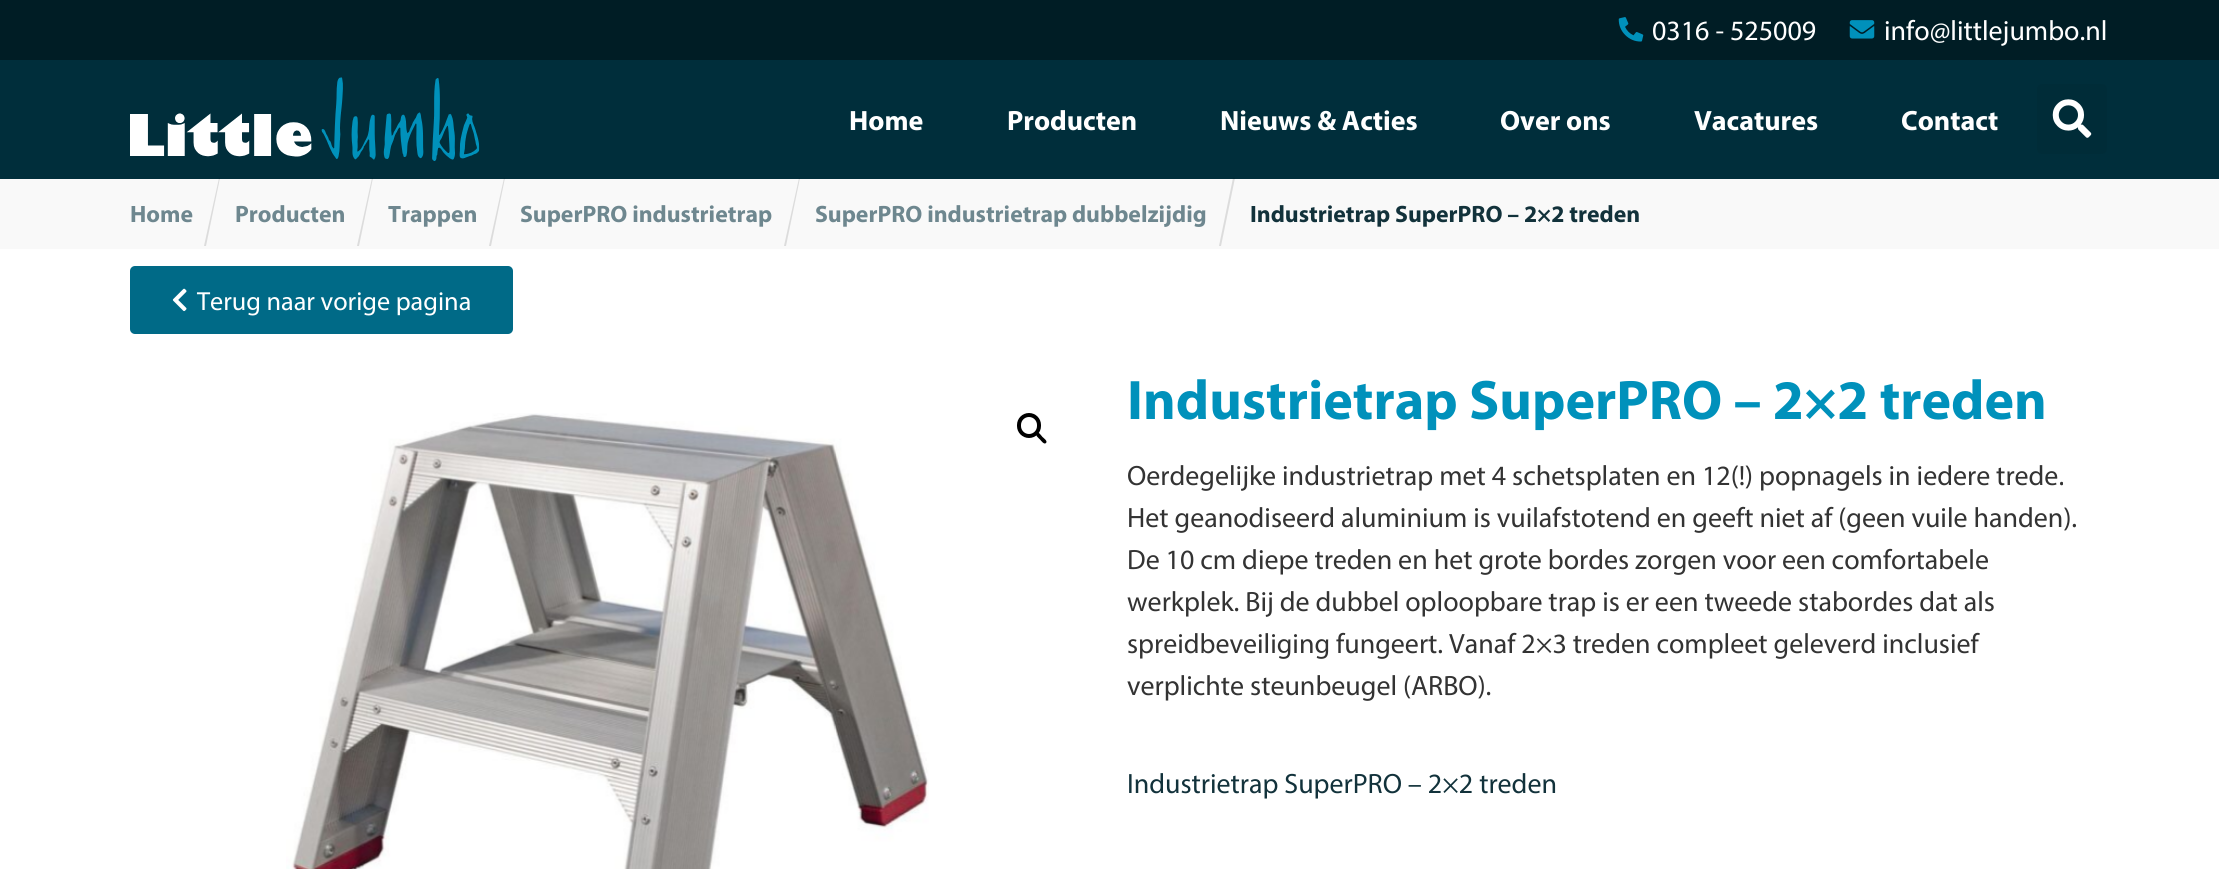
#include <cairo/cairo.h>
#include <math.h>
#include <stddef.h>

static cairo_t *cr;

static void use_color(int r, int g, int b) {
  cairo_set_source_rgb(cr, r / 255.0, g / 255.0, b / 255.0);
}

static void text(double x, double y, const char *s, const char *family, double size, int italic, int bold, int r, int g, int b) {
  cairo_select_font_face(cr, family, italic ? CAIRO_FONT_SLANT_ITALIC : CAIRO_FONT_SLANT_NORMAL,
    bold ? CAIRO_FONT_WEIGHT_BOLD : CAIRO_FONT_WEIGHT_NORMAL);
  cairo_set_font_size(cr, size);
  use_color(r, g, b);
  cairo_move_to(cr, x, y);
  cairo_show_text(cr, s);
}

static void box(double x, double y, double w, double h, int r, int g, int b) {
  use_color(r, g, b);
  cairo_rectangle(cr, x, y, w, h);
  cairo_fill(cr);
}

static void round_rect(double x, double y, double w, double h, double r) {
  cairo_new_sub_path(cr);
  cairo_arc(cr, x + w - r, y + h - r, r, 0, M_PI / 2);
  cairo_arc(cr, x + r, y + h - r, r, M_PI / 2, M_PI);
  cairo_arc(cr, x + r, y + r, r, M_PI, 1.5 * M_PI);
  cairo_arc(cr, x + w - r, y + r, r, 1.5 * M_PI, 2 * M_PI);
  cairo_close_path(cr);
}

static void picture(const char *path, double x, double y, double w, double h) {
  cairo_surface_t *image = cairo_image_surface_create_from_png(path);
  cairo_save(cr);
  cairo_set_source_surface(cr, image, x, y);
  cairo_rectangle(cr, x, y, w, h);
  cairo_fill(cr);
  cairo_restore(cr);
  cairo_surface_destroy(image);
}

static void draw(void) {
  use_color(255, 255, 255);
  cairo_paint(cr);
  box(0, 0, 2219, 60, 0, 29, 37);
  picture("img_01.png", 1618, 17, 26, 25);
  picture("img_02.png", 1849, 20, 26, 19);
  box(0, 60, 2219, 119, 0, 46, 59);
  picture("img_03.png", 130, 77, 350, 84);
  use_color(0, 44, 56);
  round_rect(2037, 84, 70, 70, 5);
  cairo_fill(cr);
  picture("img_04.png", 2052, 99, 40, 39);
  box(0, 179, 2219, 70, 249, 249, 249);
  cairo_set_source_rgba(cr, 0, 0, 0, 0.12);
  cairo_new_path(cr);
  cairo_move_to(cr, 219, 178);
  cairo_line_to(cr, 220, 178);
  cairo_line_to(cr, 206, 246);
  cairo_line_to(cr, 204, 246);
  cairo_close_path(cr);
  cairo_fill(cr);
  cairo_new_path(cr);
  cairo_move_to(cr, 372, 178);
  cairo_line_to(cr, 373, 178);
  cairo_line_to(cr, 359, 246);
  cairo_line_to(cr, 357, 246);
  cairo_close_path(cr);
  cairo_fill(cr);
  cairo_new_path(cr);
  cairo_move_to(cr, 504, 178);
  cairo_line_to(cr, 505, 178);
  cairo_line_to(cr, 491, 246);
  cairo_line_to(cr, 489, 246);
  cairo_close_path(cr);
  cairo_fill(cr);
  cairo_new_path(cr);
  cairo_move_to(cr, 799, 178);
  cairo_line_to(cr, 800, 178);
  cairo_line_to(cr, 786, 246);
  cairo_line_to(cr, 784, 246);
  cairo_close_path(cr);
  cairo_fill(cr);
  cairo_new_path(cr);
  cairo_move_to(cr, 1233, 178);
  cairo_line_to(cr, 1235, 178);
  cairo_line_to(cr, 1221, 246);
  cairo_line_to(cr, 1219, 246);
  cairo_close_path(cr);
  cairo_fill(cr);
  use_color(0, 106, 135);
  round_rect(130, 266, 383, 68, 5);
  cairo_fill(cr);
  picture("img_05.png", 172, 288, 15, 24);
  picture("img_06.png", 286, 413, 643, 456);
  round_rect(1019, 415, 20, 21, 10);
  use_color(0, 0, 0);
  cairo_set_line_width(cr, 4);
  cairo_stroke(cr);
  cairo_new_path(cr);
  cairo_move_to(cr, 1036.5, 433);
  cairo_curve_to(cr, 1038.5, 431, 1041.5, 436, 1042.5, 437);
  cairo_curve_to(cr, 1043.5, 438, 1048, 441, 1046, 443);
  cairo_curve_to(cr, 1044, 445, 1041, 440.5, 1040, 439.5);
  cairo_curve_to(cr, 1039, 438.5, 1034.5, 435, 1036.5, 433);
  cairo_close_path(cr);
  cairo_fill(cr);
  text(1652, 40, "0316 - 525009", "Myriad", 28, 0, 0, 255, 255, 255);
  text(1884, 40, "info@littlejumbo.nl", "Myriad", 28, 0, 0, 255, 255, 255);
  text(849, 130, "Home", "Myriad", 28, 0, 1, 255, 255, 255);
  text(1007, 130, "Producten", "Myriad", 28, 0, 1, 255, 255, 255);
  text(1220, 130, "Nieuws & Acties", "Myriad", 28, 0, 1, 255, 255, 255);
  text(1500, 130, "Over ons", "Myriad", 28, 0, 1, 255, 255, 255);
  text(1694, 130, "Vacatures", "Myriad", 28, 0, 1, 255, 255, 255);
  text(1901, 130, "Contact", "Myriad", 28, 0, 1, 255, 255, 255);
  text(130, 222, "Home", "Myriad", 23.75, 0, 1, 110, 135, 143);
  text(235, 222, "Producten", "Myriad", 23.75, 0, 1, 110, 135, 143);
  text(388, 222, "Trappen", "Myriad", 23.75, 0, 1, 110, 135, 143);
  text(520, 222, "SuperPRO industrietrap", "Myriad", 23.75, 0, 1, 110, 135, 143);
  text(815, 222, "SuperPRO industrietrap dubbelzijdig", "Myriad", 23.75, 0, 1, 110, 135, 143);
  text(1250, 222, "Industrietrap SuperPRO – 2×2 treden", "Myriad", 23.75, 0, 1, 18, 50, 59);
  text(197, 310, "Terug naar vorige pagina", "Myriad", 26.25, 0, 0, 255, 255, 255);
  text(1127, 419, "Industrietrap SuperPRO – 2×2 treden", "Myriad", 56, 0, 1, 0, 145, 187);
  text(1127, 485, "Oerdegelijke industrietrap met 4 schetsplaten en 12(!) popnagels in iedere trede.", "Myriad", 28, 0, 0, 51, 51, 51);
  text(1127, 527, "Het geanodiseerd aluminium is vuilafstotend en geeft niet af (geen vuile handen).", "Myriad", 28, 0, 0, 51, 51, 51);
  text(1127, 569, "De 10 cm diepe treden en het grote bordes zorgen voor een comfortabele", "Myriad", 28, 0, 0, 51, 51, 51);
  text(1127, 611, "werkplek. Bij de dubbel oploopbare trap is er een tweede stabordes dat als", "Myriad", 28, 0, 0, 51, 51, 51);
  text(1127, 653, "spreidbeveiliging fungeert. Vanaf 2×3 treden compleet geleverd inclusief", "Myriad", 28, 0, 0, 51, 51, 51);
  text(1127, 695, "verplichte steunbeugel (ARBO).", "Myriad", 28, 0, 0, 51, 51, 51);
  text(1127, 793, "Industrietrap SuperPRO – 2×2 treden", "Myriad", 28, 0, 0, 18, 50, 59);
}

int main(void) {
  cairo_surface_t *surface = cairo_image_surface_create(CAIRO_FORMAT_RGB24, 2219, 869);
  cr = cairo_create(surface);
  cairo_font_options_t *options = cairo_font_options_create();
  cairo_font_options_set_hint_metrics(options, CAIRO_HINT_METRICS_OFF);
  cairo_font_options_set_hint_style(options, CAIRO_HINT_STYLE_NONE);
  cairo_set_font_options(cr, options);
  cairo_set_miter_limit(cr, 4);
  draw();
  cairo_surface_write_to_png(surface, "out.png");
  cairo_font_options_destroy(options);
  cairo_destroy(cr);
  cairo_surface_destroy(surface);
  return 0;
}
